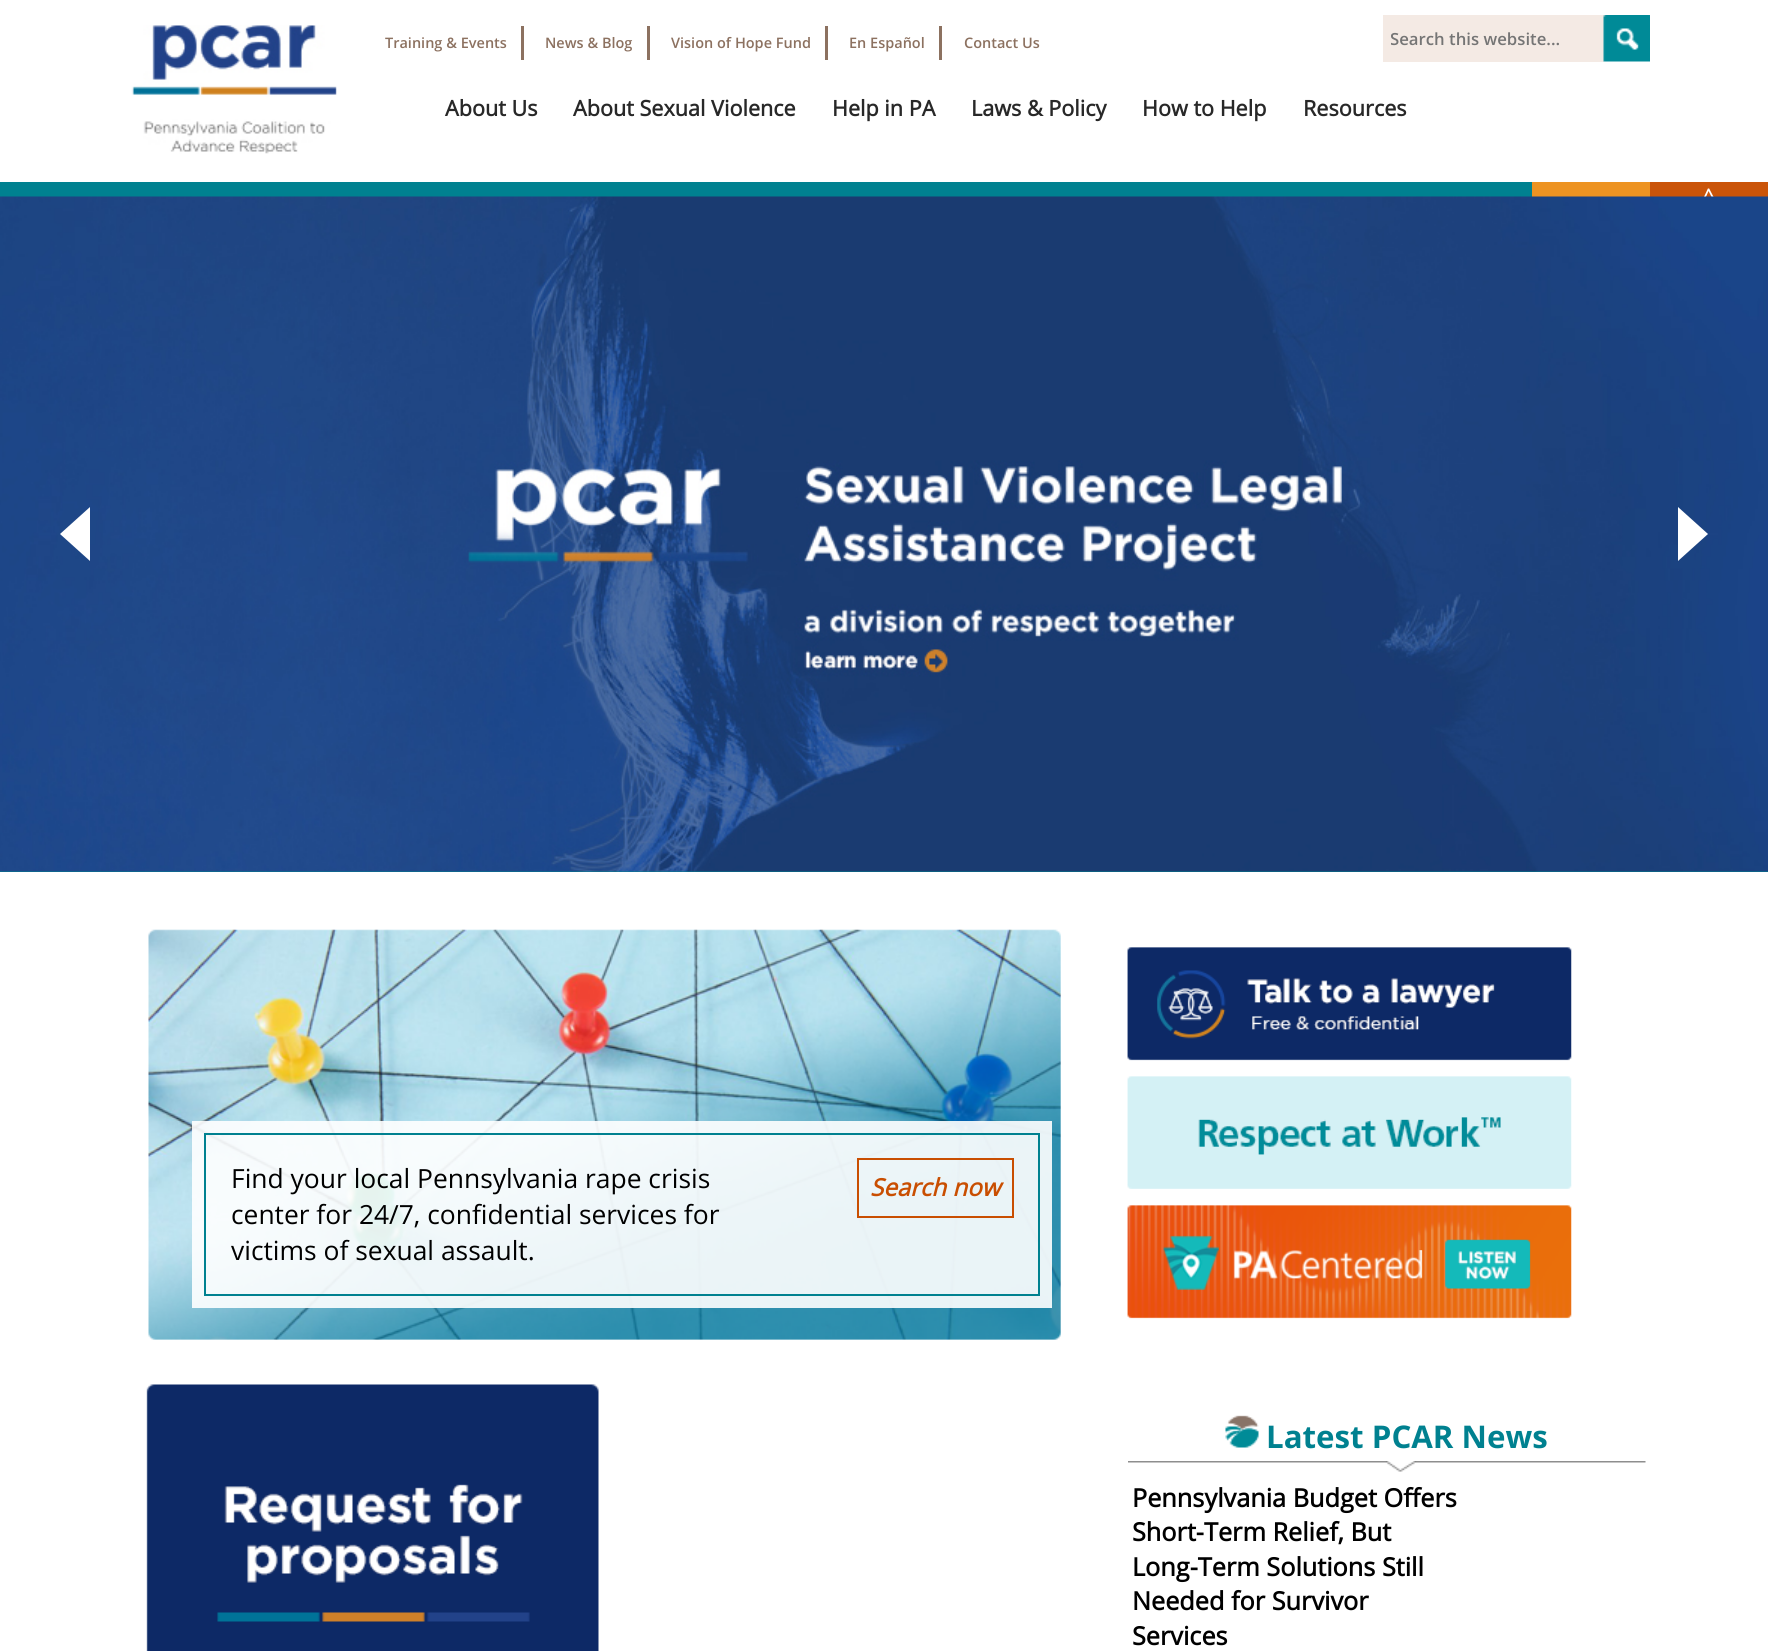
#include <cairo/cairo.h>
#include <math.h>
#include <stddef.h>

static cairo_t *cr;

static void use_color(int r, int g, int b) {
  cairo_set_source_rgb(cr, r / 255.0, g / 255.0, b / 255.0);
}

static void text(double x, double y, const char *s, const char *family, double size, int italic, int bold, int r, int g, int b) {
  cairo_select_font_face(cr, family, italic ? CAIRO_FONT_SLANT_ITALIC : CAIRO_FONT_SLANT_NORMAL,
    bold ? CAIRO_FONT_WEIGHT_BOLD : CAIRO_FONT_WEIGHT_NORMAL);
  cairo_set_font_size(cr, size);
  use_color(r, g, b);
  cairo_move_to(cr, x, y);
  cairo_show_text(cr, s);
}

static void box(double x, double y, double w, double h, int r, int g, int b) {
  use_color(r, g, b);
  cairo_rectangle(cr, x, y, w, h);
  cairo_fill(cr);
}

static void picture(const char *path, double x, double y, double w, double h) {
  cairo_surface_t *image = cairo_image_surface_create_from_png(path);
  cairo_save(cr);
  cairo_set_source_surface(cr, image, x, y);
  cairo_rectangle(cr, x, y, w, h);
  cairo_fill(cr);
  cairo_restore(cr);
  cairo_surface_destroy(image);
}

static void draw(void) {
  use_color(255, 255, 255);
  cairo_paint(cr);
  picture("img_01.png", 131, 25, 206, 129);
  box(521, 26, 3, 34, 140, 113, 96);
  box(647, 26, 3, 34, 140, 113, 96);
  box(825, 26, 3, 34, 140, 113, 96);
  box(939, 26, 3, 34, 140, 113, 96);
  box(1383, 15, 221, 47, 244, 234, 228);
  picture("img_02.png", 1603, 15, 47, 47);
  box(1532, 182, 118, 15, 237, 147, 34);
  box(1650, 182, 118, 15, 202, 84, 9);
  box(0, 182, 1532, 15, 0, 129, 144);
  box(0, 871, 1768, 1, 0, 129, 144);
  picture("img_04.png", 148, 929, 913, 411);
  cairo_set_source_rgba(cr, 1, 1, 1, 0.9);
  cairo_rectangle(cr, 192, 1121, 860, 187);
  cairo_fill(cr);
  cairo_rectangle(cr, 205, 1134, 834, 161);
  use_color(0, 129, 144);
  cairo_stroke(cr);
  cairo_rectangle(cr, 858, 1159, 155, 58);
  use_color(201, 78, 1);
  cairo_stroke(cr);
  picture("img_05.png", 146, 1384, 453, 267);
  picture("img_06.png", 1127, 947, 445, 114);
  picture("img_07.png", 1127, 1076, 445, 113);
  picture("img_08.png", 1127, 1205, 445, 114);
  picture("img_09.png", 1128, 1461, 518, 11);
  picture("img_10.png", 1225, 1415, 34, 33);
  text(385, 48, "Training & Events", "Open Sans SemiBold", 14.5, 0, 0, 140, 113, 96);
  text(545, 48, "News & Blog", "Open Sans SemiBold", 14.5, 0, 0, 140, 113, 96);
  text(671, 48, "Vision of Hope Fund", "Open Sans SemiBold", 14.5, 0, 0, 140, 113, 96);
  text(849, 48, "En Español", "Open Sans SemiBold", 14.5, 0, 0, 140, 113, 96);
  text(964, 48, "Contact Us", "Open Sans SemiBold", 14.5, 0, 0, 140, 113, 96);
  cairo_save(cr);
  cairo_rectangle(cr, 1391, 27, 210, 23);
  cairo_clip(cr);
  text(1390, 45, "Search this website...", "Open Sans SemiBold", 16.75, 0, 0, 117, 117, 117);
  cairo_restore(cr);
  text(1703, 204, "^", "Open Sans SemiBold", 21.6, 0, 0, 255, 255, 255);
  text(445, 116, "About Us", "Open Sans", 21.6, 0, 1, 40, 40, 40);
  text(573, 116, "About Sexual Violence", "Open Sans", 21.6, 0, 1, 40, 40, 40);
  text(832, 116, "Help in PA", "Open Sans", 21.6, 0, 1, 40, 40, 40);
  text(971, 116, "Laws & Policy", "Open Sans", 21.6, 0, 1, 40, 40, 40);
  text(1142, 116, "How to Help", "Open Sans", 21.6, 0, 1, 40, 40, 40);
  text(1303, 116, "Resources", "Open Sans", 21.6, 0, 1, 40, 40, 40);
  picture("img_03.png", 0, 196, 1768, 676);
  use_color(255, 255, 255);
  cairo_new_path(cr);
  cairo_move_to(cr, 90, 507);
  cairo_line_to(cr, 90, 561);
  cairo_line_to(cr, 60, 534);
  cairo_close_path(cr);
  cairo_fill(cr);
  cairo_new_path(cr);
  cairo_move_to(cr, 1678, 561);
  cairo_line_to(cr, 1678, 507);
  cairo_line_to(cr, 1708, 534);
  cairo_close_path(cr);
  cairo_fill(cr);
  text(231, 1188, "Find your local Pennsylvania rape crisis", "Open Sans", 26.4, 0, 0, 0, 0, 0);
  text(231, 1224, "center for 24/7, confidential services for", "Open Sans", 26.4, 0, 0, 0, 0, 0);
  text(231, 1260, "victims of sexual assault.", "Open Sans", 26.4, 0, 0, 0, 0, 0);
  text(870, 1196, "Search now", "Open Sans", 24, 1, 1, 201, 78, 1);
  text(1266, 1448, "Latest PCAR News", "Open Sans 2", 31.25, 0, 1, 0, 129, 144);
  text(1132, 1507, "Pennsylvania Budget Offers", "Open Sans", 25.25, 0, 1, 0, 0, 0);
  text(1132, 1541, "Short-Term Relief, But", "Open Sans", 25.25, 0, 1, 0, 0, 0);
  text(1132, 1576, "Long-Term Solutions Still", "Open Sans", 25.25, 0, 1, 0, 0, 0);
  text(1132, 1610, "Needed for Survivor", "Open Sans", 25.25, 0, 1, 0, 0, 0);
  text(1132, 1645, "Services", "Open Sans", 25.25, 0, 1, 0, 0, 0);
}

int main(void) {
  cairo_surface_t *surface = cairo_image_surface_create(CAIRO_FORMAT_RGB24, 1768, 1651);
  cr = cairo_create(surface);
  cairo_font_options_t *options = cairo_font_options_create();
  cairo_font_options_set_hint_metrics(options, CAIRO_HINT_METRICS_OFF);
  cairo_font_options_set_hint_style(options, CAIRO_HINT_STYLE_NONE);
  cairo_set_font_options(cr, options);
  cairo_set_miter_limit(cr, 4);
  draw();
  cairo_surface_write_to_png(surface, "out.png");
  cairo_font_options_destroy(options);
  cairo_destroy(cr);
  cairo_surface_destroy(surface);
  return 0;
}
